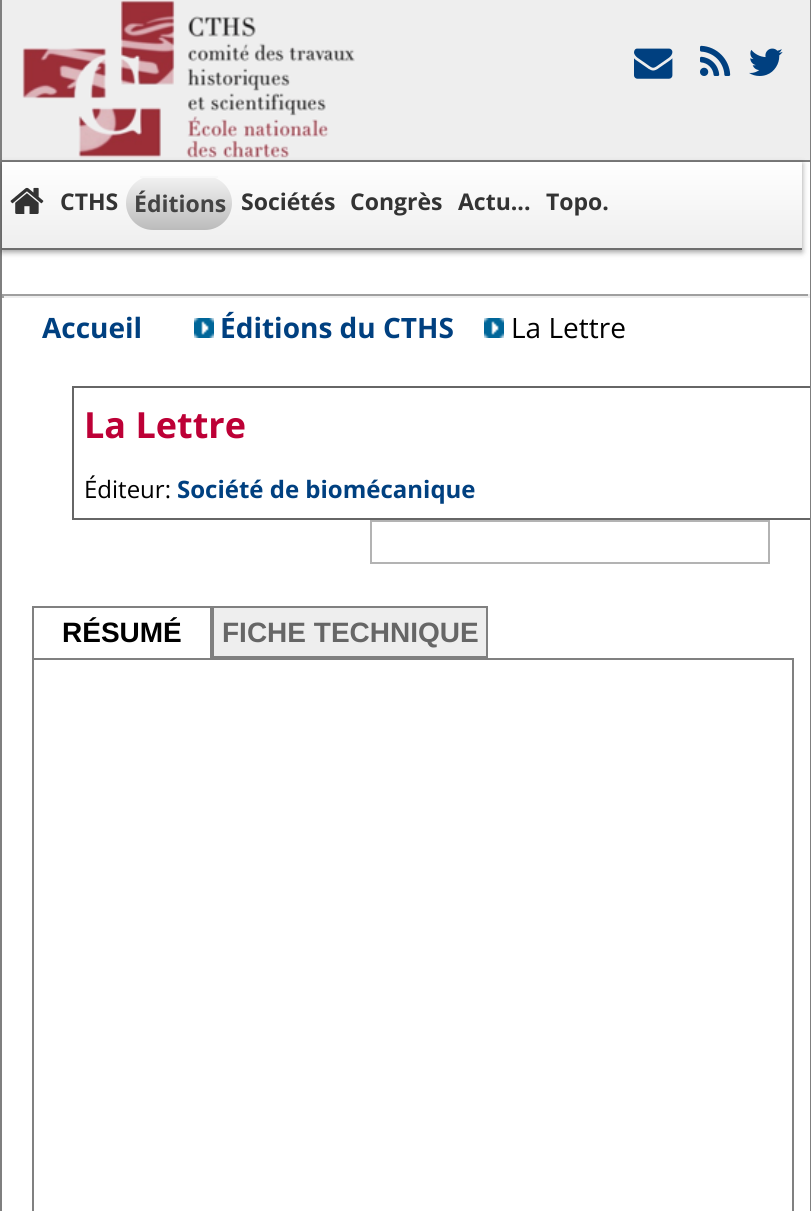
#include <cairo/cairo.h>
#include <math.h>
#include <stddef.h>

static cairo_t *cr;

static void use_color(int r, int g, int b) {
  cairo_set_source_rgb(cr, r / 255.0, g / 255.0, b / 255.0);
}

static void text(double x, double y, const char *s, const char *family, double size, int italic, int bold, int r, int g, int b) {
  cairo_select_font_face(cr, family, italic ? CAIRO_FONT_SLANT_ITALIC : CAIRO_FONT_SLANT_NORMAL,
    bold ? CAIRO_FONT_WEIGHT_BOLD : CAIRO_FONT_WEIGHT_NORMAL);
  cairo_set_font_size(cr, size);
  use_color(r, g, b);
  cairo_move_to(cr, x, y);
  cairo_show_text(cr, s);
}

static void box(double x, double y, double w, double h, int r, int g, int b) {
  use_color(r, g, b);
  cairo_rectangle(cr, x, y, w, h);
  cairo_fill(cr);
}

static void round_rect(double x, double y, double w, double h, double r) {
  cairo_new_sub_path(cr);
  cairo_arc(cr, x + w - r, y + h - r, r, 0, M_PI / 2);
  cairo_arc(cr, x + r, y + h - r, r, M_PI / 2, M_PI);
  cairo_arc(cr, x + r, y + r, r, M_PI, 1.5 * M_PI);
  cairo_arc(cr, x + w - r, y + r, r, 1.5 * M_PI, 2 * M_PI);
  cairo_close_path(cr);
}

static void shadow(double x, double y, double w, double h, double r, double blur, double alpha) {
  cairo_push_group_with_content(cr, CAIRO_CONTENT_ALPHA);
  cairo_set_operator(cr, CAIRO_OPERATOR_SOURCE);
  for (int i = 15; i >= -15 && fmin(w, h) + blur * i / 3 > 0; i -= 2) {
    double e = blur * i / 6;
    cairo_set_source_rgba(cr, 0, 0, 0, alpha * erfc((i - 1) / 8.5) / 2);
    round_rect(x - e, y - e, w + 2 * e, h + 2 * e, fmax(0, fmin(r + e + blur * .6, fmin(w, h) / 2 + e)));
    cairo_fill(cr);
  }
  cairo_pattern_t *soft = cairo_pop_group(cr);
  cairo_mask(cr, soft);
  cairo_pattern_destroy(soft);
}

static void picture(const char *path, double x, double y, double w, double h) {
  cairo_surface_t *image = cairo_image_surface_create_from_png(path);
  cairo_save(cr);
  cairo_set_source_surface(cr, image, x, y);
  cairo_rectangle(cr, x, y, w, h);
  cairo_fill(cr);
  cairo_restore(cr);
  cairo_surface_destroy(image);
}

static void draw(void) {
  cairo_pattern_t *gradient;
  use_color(255, 255, 255);
  cairo_paint(cr);
  box(810, 0, 1, 1211, 127, 127, 127);
  box(0, 0, 2, 1211, 127, 127, 127);
  box(2, 0, 808, 160, 238, 238, 238);
  box(2, 160, 808, 2, 127, 127, 127);
  picture("img_01.png", 22, 0, 333, 158);
  picture("img_02.png", 634, 48, 39, 31);
  picture("img_03.png", 700, 45, 31, 31);
  picture("img_04.png", 749, 48, 34, 28);
  use_color(0, 0, 0);
  shadow(2, 164, 800, 88, 0, 3, 0.4);
  gradient = cairo_pattern_create_linear(2, 162, 2, 248);
  cairo_pattern_add_color_stop_rgba(gradient, 0, 1, 1, 1, 1);
  cairo_pattern_add_color_stop_rgba(gradient, 1, 0.933, 0.933, 0.933, 1);
  cairo_set_source(cr, gradient);
  cairo_pattern_destroy(gradient);
  cairo_rectangle(cr, 2, 162, 800, 86);
  cairo_fill(cr);
  box(2, 248, 800, 2, 109, 109, 109);
  picture("img_05.png", 10, 187, 34, 27);
  cairo_save(cr);
  round_rect(126, 176, 106, 54, 27);
  cairo_clip(cr);
  gradient = cairo_pattern_create_linear(126, 178, 126, 230);
  cairo_pattern_add_color_stop_rgba(gradient, 0, 0.945, 0.945, 0.945, 1);
  cairo_pattern_add_color_stop_rgba(gradient, 1, 0.733, 0.733, 0.733, 1);
  cairo_set_source(cr, gradient);
  cairo_pattern_destroy(gradient);
  cairo_new_path(cr);
  cairo_move_to(cr, 126, 178);
  cairo_line_to(cr, 232, 178);
  cairo_line_to(cr, 232, 203);
  cairo_curve_to(cr, 232, 218, 220, 230, 205, 230);
  cairo_line_to(cr, 153, 230);
  cairo_curve_to(cr, 138, 230, 126, 218, 126, 203);
  cairo_close_path(cr);
  cairo_fill(cr);
  cairo_restore(cr);
  box(140, 176, 78, 2, 248, 248, 248);
  box(2, 294, 808, 2, 159, 159, 159);
  box(808, 294, 2, 4, 238, 238, 238);
  box(2, 296, 808, 2, 238, 238, 238);
  box(2, 294, 2, 4, 159, 159, 159);
  picture("img_06.png", 194, 318, 20, 20);
  picture("img_06.png", 484, 318, 20, 20);
  cairo_save(cr);
  cairo_rectangle(cr, 2, 310, 808, 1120);
  cairo_clip(cr);
  cairo_rectangle(cr, 73, 387, 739, 132);
  use_color(102, 102, 102);
  cairo_stroke(cr);
  cairo_restore(cr);
  cairo_rectangle(cr, 371, 521, 398, 42);
  use_color(179, 179, 179);
  cairo_stroke(cr);
  cairo_rectangle(cr, 33, 607, 178, 50);
  use_color(128, 128, 128);
  cairo_stroke(cr);
  box(34, 656, 176, 2, 255, 255, 255);
  cairo_rectangle(cr, 213, 607, 274, 50);
  use_color(128, 128, 128);
  cairo_stroke(cr);
  box(214, 608, 272, 48, 238, 238, 238);
  cairo_rectangle(cr, 33, 659, 760, 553);
  use_color(128, 128, 128);
  cairo_stroke(cr);
  text(60, 210, "CTHS", "Open Sans", 23, 0, 1, 51, 51, 51);
  text(134, 212, "Éditions", "Open Sans", 23, 0, 1, 68, 68, 68);
  text(241, 210, "Sociétés", "Open Sans", 23, 0, 1, 51, 51, 51);
  text(350, 210, "Congrès", "Open Sans", 23, 0, 1, 51, 51, 51);
  text(458, 210, "Actu...", "Open Sans", 23, 0, 1, 51, 51, 51);
  text(546, 210, "Topo.", "Open Sans", 23, 0, 1, 51, 51, 51);
  text(42, 338, "Accueil", "Open Sans", 28, 0, 1, 0, 64, 128);
  text(220, 338, "Éditions du CTHS", "Open Sans", 28, 0, 1, 0, 64, 128);
  text(511, 338, "La Lettre", "Open Sans", 28, 0, 0, 0, 0, 0);
  text(84, 438, "La Lettre", "Open Sans", 36, 0, 1, 189, 0, 54);
  text(84, 498, "Éditeur:", "Open Sans", 24, 0, 0, 0, 0, 0);
  text(177, 498, "Société de biomécanique", "Open Sans", 24, 0, 1, 0, 64, 128);
  text(62, 642, "RÉSUMÉ", "Liberation Sans", 28, 0, 1, 0, 0, 0);
  text(222, 642, "FICHE TECHNIQUE", "Liberation Sans", 28, 0, 1, 102, 102, 102);
}

int main(void) {
  cairo_surface_t *surface = cairo_image_surface_create(CAIRO_FORMAT_RGB24, 811, 1211);
  cr = cairo_create(surface);
  cairo_font_options_t *options = cairo_font_options_create();
  cairo_font_options_set_hint_metrics(options, CAIRO_HINT_METRICS_OFF);
  cairo_font_options_set_hint_style(options, CAIRO_HINT_STYLE_NONE);
  cairo_set_font_options(cr, options);
  cairo_set_miter_limit(cr, 4);
  draw();
  cairo_surface_write_to_png(surface, "out.png");
  cairo_font_options_destroy(options);
  cairo_destroy(cr);
  cairo_surface_destroy(surface);
  return 0;
}
